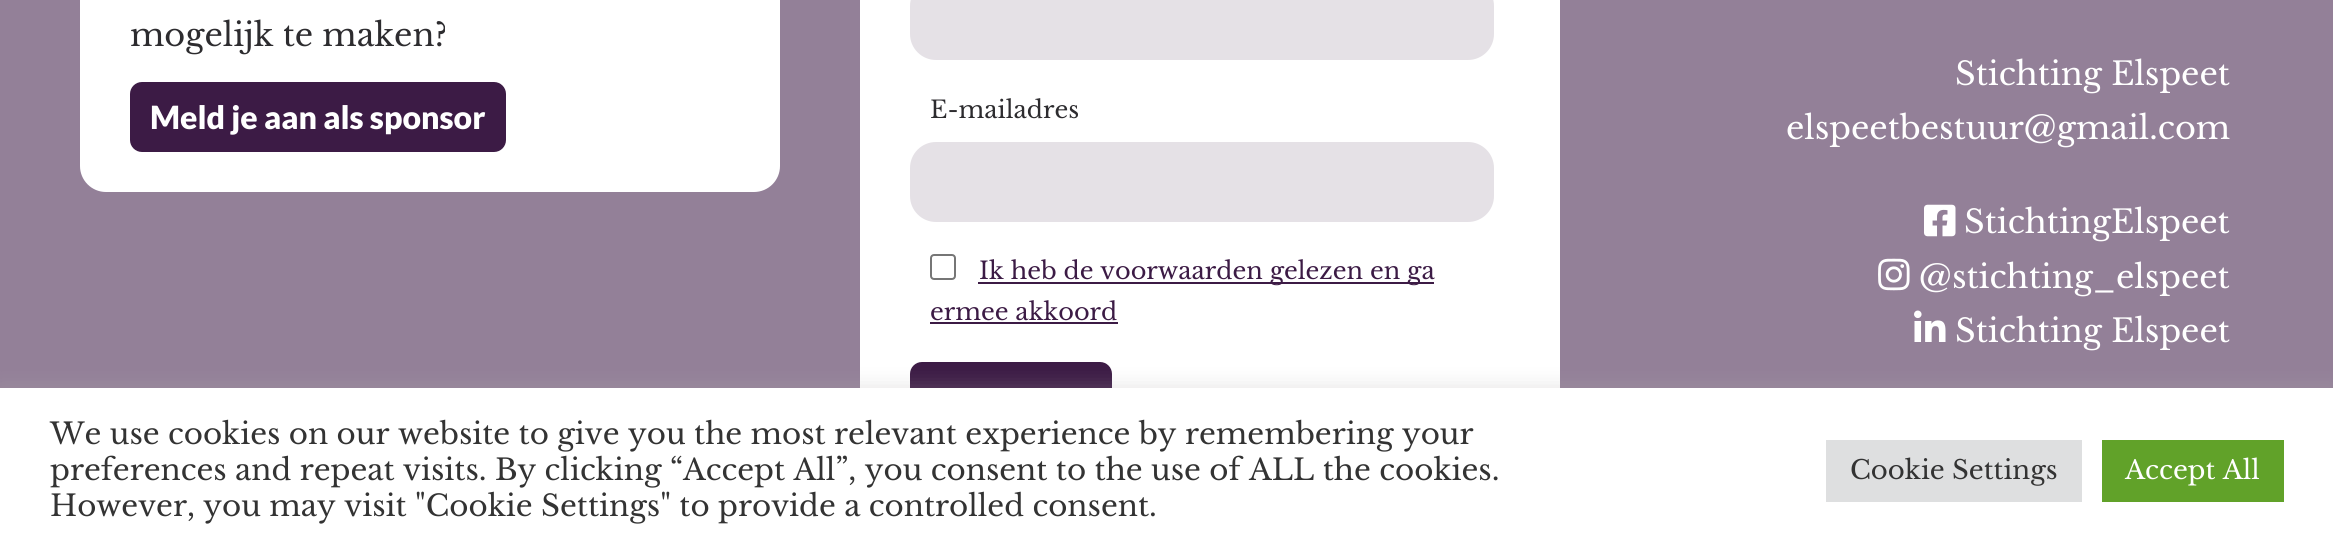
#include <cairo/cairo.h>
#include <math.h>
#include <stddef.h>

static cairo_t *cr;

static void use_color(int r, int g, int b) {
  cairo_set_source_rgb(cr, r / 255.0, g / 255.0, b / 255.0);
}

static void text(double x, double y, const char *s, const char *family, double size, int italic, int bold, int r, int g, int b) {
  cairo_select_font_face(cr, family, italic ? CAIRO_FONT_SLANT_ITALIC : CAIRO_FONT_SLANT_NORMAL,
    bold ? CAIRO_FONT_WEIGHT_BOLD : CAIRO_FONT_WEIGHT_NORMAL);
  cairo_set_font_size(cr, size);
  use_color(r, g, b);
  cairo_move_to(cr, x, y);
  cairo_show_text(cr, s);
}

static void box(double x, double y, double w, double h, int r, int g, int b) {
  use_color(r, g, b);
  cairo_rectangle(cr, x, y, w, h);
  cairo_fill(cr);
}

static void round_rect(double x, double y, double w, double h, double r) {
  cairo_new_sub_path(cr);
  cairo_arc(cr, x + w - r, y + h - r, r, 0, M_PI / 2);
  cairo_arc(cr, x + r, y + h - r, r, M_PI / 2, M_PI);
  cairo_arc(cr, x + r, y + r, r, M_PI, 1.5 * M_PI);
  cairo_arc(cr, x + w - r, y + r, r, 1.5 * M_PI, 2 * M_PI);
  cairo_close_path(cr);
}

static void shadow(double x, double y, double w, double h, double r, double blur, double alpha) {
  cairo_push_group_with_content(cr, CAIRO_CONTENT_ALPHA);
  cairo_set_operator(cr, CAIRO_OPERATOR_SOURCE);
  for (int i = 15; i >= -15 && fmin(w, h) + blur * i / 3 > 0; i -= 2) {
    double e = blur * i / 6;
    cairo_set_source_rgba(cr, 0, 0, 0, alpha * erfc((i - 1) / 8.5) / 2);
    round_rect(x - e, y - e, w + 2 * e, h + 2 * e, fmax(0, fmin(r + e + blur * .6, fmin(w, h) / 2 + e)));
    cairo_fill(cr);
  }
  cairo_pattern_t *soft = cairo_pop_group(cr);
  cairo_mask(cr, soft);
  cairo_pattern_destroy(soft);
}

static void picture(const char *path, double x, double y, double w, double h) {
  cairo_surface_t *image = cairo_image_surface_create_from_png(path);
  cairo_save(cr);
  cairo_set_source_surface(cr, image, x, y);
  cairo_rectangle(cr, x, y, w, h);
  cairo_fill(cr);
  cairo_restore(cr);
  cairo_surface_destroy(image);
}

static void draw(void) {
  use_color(147, 128, 152);
  cairo_paint(cr);
  use_color(255, 255, 255);
  round_rect(80, -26, 700, 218, 26);
  cairo_fill(cr);
  use_color(60, 27, 69);
  round_rect(130, 82, 376, 70, 12);
  cairo_fill(cr);
  box(860, 0, 700, 388, 255, 255, 255);
  use_color(229, 225, 230);
  round_rect(910, -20, 584, 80, 26);
  cairo_fill(cr);
  round_rect(910, 142, 584, 80, 26);
  cairo_fill(cr);
  round_rect(931, 255, 24, 24, 3);
  use_color(118, 118, 118);
  cairo_stroke(cr);
  box(978, 282, 456, 2, 60, 27, 69);
  box(930, 322, 188, 2, 60, 27, 69);
  round_rect(910, 362, 202, 70, 12);
  cairo_fill(cr);
  picture("img_01.png", 1924, 204, 32, 33);
  picture("img_02.png", 1878, 258, 32, 33);
  picture("img_03.png", 1914, 310, 32, 32);
  use_color(172, 171, 171);
  shadow(0, 386, 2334, 164, 0, 10, 0.3);
  box(0, 388, 2333, 164, 255, 255, 255);
  box(1826, 440, 256, 62, 222, 223, 224);
  box(2102, 440, 182, 62, 97, 162, 41);
  text(130, 46, "mogelijk te maken?", "Libre Baskerville", 32, 0, 0, 45, 44, 47);
  text(150, 129, "Meld je aan als sponsor", "Lato Black", 32, 0, 0, 255, 255, 255);
  text(930, 118, "E-mailadres", "Libre Baskerville", 24, 0, 0, 45, 44, 47);
  text(979, 279, "Ik heb de voorwaarden gelezen en ga", "Libre Baskerville", 24, 0, 0, 60, 27, 69);
  text(930, 320, "ermee akkoord", "Libre Baskerville", 24, 0, 0, 60, 27, 69);
  text(1955, 85, "Stichting Elspeet", "Libre Baskerville", 32, 0, 0, 255, 255, 255);
  text(1786, 139, "elspeetbestuur@gmail.com", "Libre Baskerville", 32, 0, 0, 255, 255, 255);
  text(1964, 233, "StichtingElspeet", "Libre Baskerville", 32, 0, 0, 255, 255, 255);
  text(1919, 288, "@stichting_elspeet", "Libre Baskerville", 32, 0, 0, 255, 255, 255);
  text(1955, 342, "Stichting Elspeet", "Libre Baskerville", 32, 0, 0, 255, 255, 255);
  text(50, 444, "We use cookies on our website to give you the most relevant experience by remembering your", "Libre Baskerville", 29.35, 0, 0, 51, 51, 51);
  text(50, 480, "preferences and repeat visits. By clicking “Accept All”, you consent to the use of ALL the cookies.", "Libre Baskerville", 29.35, 0, 0, 51, 51, 51);
  text(50, 516, "However, you may visit \"Cookie Settings\" to provide a controlled consent.", "Libre Baskerville", 29.35, 0, 0, 51, 51, 51);
  text(1850, 479, "Cookie Settings", "Libre Baskerville", 26, 0, 0, 51, 51, 51);
  text(2125, 479, "Accept All", "Libre Baskerville", 26, 0, 0, 255, 255, 255);
}

int main(void) {
  cairo_surface_t *surface = cairo_image_surface_create(CAIRO_FORMAT_RGB24, 2333, 552);
  cr = cairo_create(surface);
  cairo_font_options_t *options = cairo_font_options_create();
  cairo_font_options_set_hint_metrics(options, CAIRO_HINT_METRICS_OFF);
  cairo_font_options_set_hint_style(options, CAIRO_HINT_STYLE_NONE);
  cairo_set_font_options(cr, options);
  cairo_set_miter_limit(cr, 4);
  draw();
  cairo_surface_write_to_png(surface, "out.png");
  cairo_font_options_destroy(options);
  cairo_destroy(cr);
  cairo_surface_destroy(surface);
  return 0;
}
